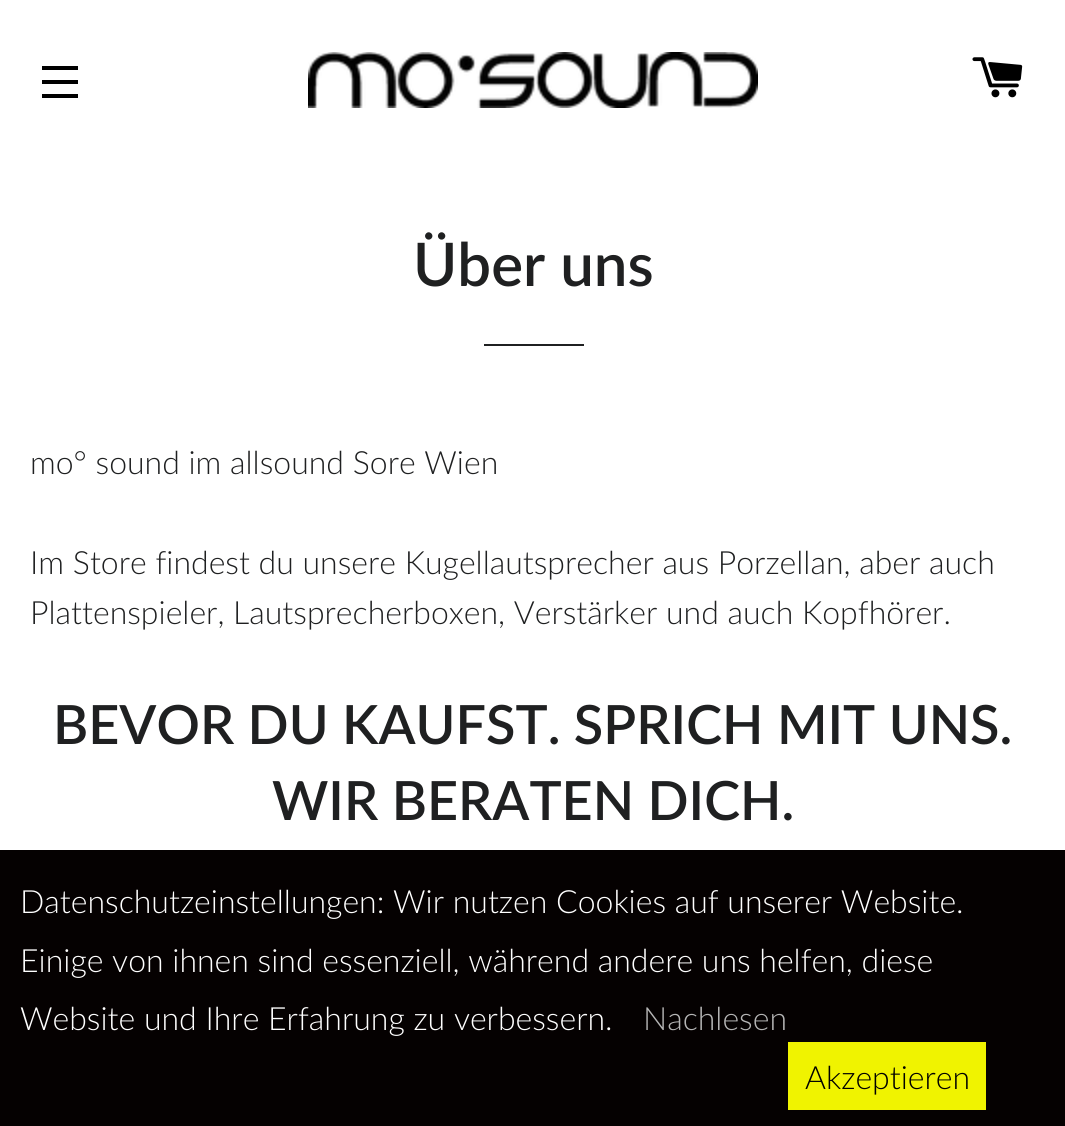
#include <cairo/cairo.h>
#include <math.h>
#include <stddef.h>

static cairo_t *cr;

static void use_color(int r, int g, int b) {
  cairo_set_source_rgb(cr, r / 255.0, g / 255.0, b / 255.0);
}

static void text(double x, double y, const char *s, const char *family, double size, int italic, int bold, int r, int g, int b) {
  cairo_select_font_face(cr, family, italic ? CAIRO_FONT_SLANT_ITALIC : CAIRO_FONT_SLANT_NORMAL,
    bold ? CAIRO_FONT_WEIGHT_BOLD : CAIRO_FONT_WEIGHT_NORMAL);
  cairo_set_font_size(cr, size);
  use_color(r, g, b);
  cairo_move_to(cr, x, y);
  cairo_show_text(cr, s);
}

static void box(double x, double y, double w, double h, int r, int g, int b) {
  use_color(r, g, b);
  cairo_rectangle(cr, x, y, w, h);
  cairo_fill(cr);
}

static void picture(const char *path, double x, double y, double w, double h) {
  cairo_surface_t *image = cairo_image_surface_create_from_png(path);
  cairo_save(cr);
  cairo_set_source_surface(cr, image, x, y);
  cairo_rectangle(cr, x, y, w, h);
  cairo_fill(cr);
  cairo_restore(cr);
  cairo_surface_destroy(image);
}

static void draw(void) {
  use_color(255, 255, 255);
  cairo_paint(cr);
  box(42, 66, 36, 4, 0, 0, 0);
  box(42, 80, 36, 4, 0, 0, 0);
  box(42, 94, 36, 4, 0, 0, 0);
  picture("img_01.png", 308, 52, 450, 56);
  picture("img_02.png", 972, 57, 51, 41);
  box(484, 344, 100, 2, 31, 32, 33);
  box(0, 850, 1065, 276, 5, 1, 1);
  use_color(240, 243, 0);
  cairo_rectangle(cr, 790, 1044, 194, 64);
  cairo_fill_preserve(cr);
  cairo_set_line_width(cr, 4);
  cairo_stroke(cr);
  text(413, 286, "Über uns", "Lato SemiBold", 60, 0, 0, 31, 32, 33);
  text(30, 474, "mo° sound im allsound Sore Wien", "Lato Light", 32, 0, 0, 31, 32, 33);
  text(30, 574, "Im Store findest du unsere Kugellautsprecher aus Porzellan, aber auch", "Lato Light", 32, 0, 0, 31, 32, 33);
  text(30, 624, "Plattenspieler, Lautsprecherboxen, Verstärker und auch Kopfhörer.", "Lato Light", 32, 0, 0, 31, 32, 33);
  text(53, 744, "BEVOR DU KAUFST. SPRICH MIT UNS.", "Lato SemiBold", 54, 0, 0, 31, 32, 33);
  text(272, 820, "WIR BERATEN DICH.", "Lato SemiBold", 54, 0, 0, 31, 32, 33);
  text(20, 913, "Datenschutzeinstellungen: Wir nutzen Cookies auf unserer Website.", "Lato Light", 32, 0, 0, 255, 255, 255);
  text(20, 972, "Einige von ihnen sind essenziell, während andere uns helfen, diese", "Lato Light", 32, 0, 0, 255, 255, 255);
  text(20, 1030, "Website und Ihre Erfahrung zu verbessern.", "Lato Light", 32, 0, 0, 255, 255, 255);
  text(643, 1030, "Nachlesen", "Lato Light", 32, 0, 0, 181, 181, 181);
  text(805, 1089, "Akzeptieren", "Lato Light", 32, 0, 0, 0, 0, 0);
}

int main(void) {
  cairo_surface_t *surface = cairo_image_surface_create(CAIRO_FORMAT_RGB24, 1065, 1126);
  cr = cairo_create(surface);
  cairo_font_options_t *options = cairo_font_options_create();
  cairo_font_options_set_hint_metrics(options, CAIRO_HINT_METRICS_OFF);
  cairo_font_options_set_hint_style(options, CAIRO_HINT_STYLE_NONE);
  cairo_set_font_options(cr, options);
  cairo_set_miter_limit(cr, 4);
  draw();
  cairo_surface_write_to_png(surface, "out.png");
  cairo_font_options_destroy(options);
  cairo_destroy(cr);
  cairo_surface_destroy(surface);
  return 0;
}
